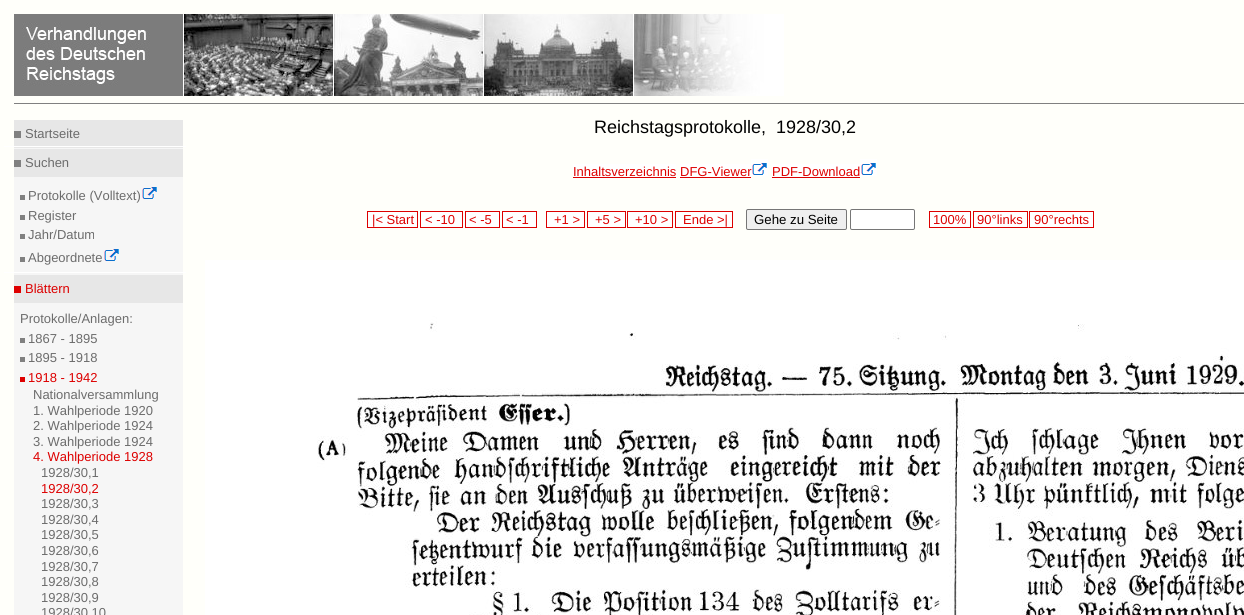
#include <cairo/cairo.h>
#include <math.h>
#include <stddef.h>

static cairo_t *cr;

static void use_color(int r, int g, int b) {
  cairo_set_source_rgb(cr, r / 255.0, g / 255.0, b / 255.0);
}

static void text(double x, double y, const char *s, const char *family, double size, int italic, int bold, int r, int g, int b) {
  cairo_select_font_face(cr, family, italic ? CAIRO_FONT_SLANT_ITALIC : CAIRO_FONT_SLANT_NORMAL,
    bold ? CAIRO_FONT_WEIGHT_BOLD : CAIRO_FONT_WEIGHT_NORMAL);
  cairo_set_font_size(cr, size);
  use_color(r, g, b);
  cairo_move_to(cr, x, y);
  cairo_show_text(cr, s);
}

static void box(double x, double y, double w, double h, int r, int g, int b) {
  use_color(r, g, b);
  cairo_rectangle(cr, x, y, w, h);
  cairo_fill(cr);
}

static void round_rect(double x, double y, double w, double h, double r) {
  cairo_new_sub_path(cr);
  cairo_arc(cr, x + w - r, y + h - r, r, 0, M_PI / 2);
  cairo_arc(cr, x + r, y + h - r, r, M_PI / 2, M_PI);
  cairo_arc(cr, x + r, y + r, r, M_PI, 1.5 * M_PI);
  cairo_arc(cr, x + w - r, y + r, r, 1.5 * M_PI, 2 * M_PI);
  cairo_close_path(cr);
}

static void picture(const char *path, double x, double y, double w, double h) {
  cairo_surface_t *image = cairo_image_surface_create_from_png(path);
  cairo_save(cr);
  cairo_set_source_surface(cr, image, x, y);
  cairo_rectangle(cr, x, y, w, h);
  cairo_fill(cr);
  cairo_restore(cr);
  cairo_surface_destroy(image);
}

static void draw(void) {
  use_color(255, 255, 250);
  cairo_paint(cr);
  picture("img_01.png", 14, 14, 770, 82);
  box(14, 103, 1230, 1, 128, 128, 128);
  box(14, 148, 169, 467, 246, 246, 246);
  box(14, 120, 169, 28, 231, 231, 231);
  box(14, 131, 7, 7, 128, 128, 128);
  box(4, 146, 182, 1, 255, 255, 255);
  box(14, 149, 169, 28, 231, 231, 231);
  box(14, 160, 7, 7, 128, 128, 128);
  box(20, 195, 5, 5, 128, 128, 128);
  picture("img_02.png", 142, 187, 15, 12);
  box(20, 215, 5, 5, 128, 128, 128);
  box(20, 234, 5, 5, 128, 128, 128);
  box(20, 257, 5, 5, 128, 128, 128);
  picture("img_02.png", 104, 249, 15, 12);
  box(4, 272, 182, 1, 255, 255, 255);
  box(14, 275, 169, 28, 231, 231, 231);
  box(14, 286, 7, 7, 222, 0, 0);
  box(20, 338, 5, 5, 128, 128, 128);
  box(20, 357, 5, 5, 128, 128, 128);
  box(20, 377, 5, 5, 222, 0, 0);
  box(573, 164, 103, 15, 255, 255, 255);
  box(573, 177, 103, 1, 221, 0, 0);
  box(680, 164, 71, 15, 255, 255, 255);
  box(751, 159, 17, 17, 255, 255, 255);
  box(680, 177, 71, 1, 221, 0, 0);
  picture("img_03.png", 752, 163, 15, 12);
  box(772, 164, 88, 15, 255, 255, 255);
  box(860, 159, 17, 17, 255, 255, 255);
  box(772, 177, 88, 1, 221, 0, 0);
  picture("img_03.png", 861, 163, 15, 12);
  box(368, 212, 49, 15, 255, 255, 255);
  cairo_rectangle(cr, 367.5, 211.5, 50, 16);
  use_color(221, 0, 0);
  cairo_set_line_width(cr, 1);
  cairo_stroke(cr);
  box(421, 212, 41, 15, 255, 255, 255);
  cairo_rectangle(cr, 420.5, 211.5, 42, 16);
  use_color(221, 0, 0);
  cairo_stroke(cr);
  box(466, 212, 33, 15, 255, 255, 255);
  cairo_rectangle(cr, 465.5, 211.5, 34, 16);
  use_color(221, 0, 0);
  cairo_stroke(cr);
  box(503, 212, 33, 15, 255, 255, 255);
  cairo_rectangle(cr, 502.5, 211.5, 34, 16);
  use_color(221, 0, 0);
  cairo_stroke(cr);
  box(547, 212, 37, 15, 255, 255, 255);
  cairo_rectangle(cr, 546.5, 211.5, 38, 16);
  use_color(221, 0, 0);
  cairo_stroke(cr);
  box(588, 212, 37, 15, 255, 255, 255);
  cairo_rectangle(cr, 587.5, 211.5, 38, 16);
  use_color(221, 0, 0);
  cairo_stroke(cr);
  box(628, 212, 44, 15, 255, 255, 255);
  cairo_rectangle(cr, 627.5, 211.5, 45, 16);
  use_color(221, 0, 0);
  cairo_stroke(cr);
  box(676, 212, 56, 15, 255, 255, 255);
  cairo_rectangle(cr, 675.5, 211.5, 57, 16);
  use_color(221, 0, 0);
  cairo_stroke(cr);
  use_color(239, 239, 239);
  round_rect(746.5, 209.5, 100, 20, 1.5);
  cairo_fill_preserve(cr);
  use_color(118, 118, 118);
  cairo_stroke(cr);
  use_color(255, 255, 255);
  round_rect(850.5, 209.5, 64, 20, 1.5);
  cairo_fill_preserve(cr);
  use_color(118, 118, 118);
  cairo_stroke(cr);
  box(930, 212, 40, 15, 255, 255, 255);
  cairo_rectangle(cr, 929.5, 211.5, 41, 16);
  use_color(221, 0, 0);
  cairo_stroke(cr);
  box(974, 212, 53, 15, 255, 255, 255);
  cairo_rectangle(cr, 973.5, 211.5, 54, 16);
  use_color(221, 0, 0);
  cairo_stroke(cr);
  box(1030, 212, 63, 15, 255, 255, 255);
  cairo_rectangle(cr, 1029.5, 211.5, 64, 16);
  use_color(221, 0, 0);
  cairo_stroke(cr);
  picture("img_04.png", 205, 260, 1039, 355);
  text(25, 138, "Startseite", "Liberation Sans", 13, 0, 0, 108, 108, 108);
  text(25, 167, "Suchen", "Liberation Sans", 13, 0, 0, 108, 108, 108);
  text(28, 200, "Protokolle (Volltext)", "Liberation Sans", 13, 0, 0, 108, 108, 108);
  text(28, 220, "Register", "Liberation Sans", 13, 0, 0, 108, 108, 108);
  text(28, 239, "Jahr/Datum", "Liberation Sans", 13, 0, 0, 108, 108, 108);
  text(28, 262, "Abgeordnete", "Liberation Sans", 13, 0, 0, 108, 108, 108);
  text(25, 293, "Blättern", "Liberation Sans", 13, 0, 0, 221, 0, 0);
  text(20, 323, "Protokolle/Anlagen:", "Liberation Sans", 13, 0, 0, 108, 108, 108);
  text(28, 343, "1867 - 1895", "Liberation Sans", 13, 0, 0, 108, 108, 108);
  text(28, 362, "1895 - 1918", "Liberation Sans", 13, 0, 0, 108, 108, 108);
  text(28, 382, "1918 - 1942", "Liberation Sans", 13, 0, 0, 221, 0, 0);
  text(33, 399, "Nationalversammlung", "Liberation Sans", 13, 0, 0, 108, 108, 108);
  text(33, 415, "1. Wahlperiode 1920", "Liberation Sans", 13, 0, 0, 108, 108, 108);
  text(33, 430, "2. Wahlperiode 1924", "Liberation Sans", 13, 0, 0, 108, 108, 108);
  text(33, 446, "3. Wahlperiode 1924", "Liberation Sans", 13, 0, 0, 108, 108, 108);
  text(33, 461, "4. Wahlperiode 1928", "Liberation Sans", 13, 0, 0, 221, 0, 0);
  text(41, 477, "1928/30,1", "Liberation Sans", 13, 0, 0, 108, 108, 108);
  text(41, 493, "1928/30,2", "Liberation Sans", 13, 0, 0, 221, 0, 0);
  text(41, 508, "1928/30,3", "Liberation Sans", 13, 0, 0, 108, 108, 108);
  text(41, 524, "1928/30,4", "Liberation Sans", 13, 0, 0, 108, 108, 108);
  text(41, 539, "1928/30,5", "Liberation Sans", 13, 0, 0, 108, 108, 108);
  text(41, 555, "1928/30,6", "Liberation Sans", 13, 0, 0, 108, 108, 108);
  text(41, 571, "1928/30,7", "Liberation Sans", 13, 0, 0, 108, 108, 108);
  text(41, 586, "1928/30,8", "Liberation Sans", 13, 0, 0, 108, 108, 108);
  text(41, 602, "1928/30,9", "Liberation Sans", 13, 0, 0, 108, 108, 108);
  text(41, 617, "1928/30,10", "Liberation Sans", 13, 0, 0, 108, 108, 108);
  text(594, 133, "Reichstagsprotokolle,", "Liberation Sans", 18, 0, 0, 0, 0, 0);
  text(776, 133, "1928/30,2", "Liberation Sans", 18, 0, 0, 0, 0, 0);
  text(573, 176, "Inhaltsverzeichnis", "Liberation Sans", 13, 0, 0, 221, 0, 0);
  text(680, 176, "DFG-Viewer", "Liberation Sans", 13, 0, 0, 221, 0, 0);
  text(772, 176, "PDF-Download", "Liberation Sans", 13, 0, 0, 221, 0, 0);
  text(372, 224, "|< Start", "Liberation Sans", 13, 0, 0, 221, 0, 0);
  text(425, 224, "< -10", "Liberation Sans", 13, 0, 0, 221, 0, 0);
  text(469, 224, "< -5", "Liberation Sans", 13, 0, 0, 221, 0, 0);
  text(506, 224, "< -1", "Liberation Sans", 13, 0, 0, 221, 0, 0);
  text(554, 224, "+1 >", "Liberation Sans", 13, 0, 0, 221, 0, 0);
  text(595, 224, "+5 >", "Liberation Sans", 13, 0, 0, 221, 0, 0);
  text(635, 224, "+10 >", "Liberation Sans", 13, 0, 0, 221, 0, 0);
  text(683, 224, "Ende >|", "Liberation Sans", 13, 0, 0, 221, 0, 0);
  text(754, 224, "Gehe zu Seite", "Liberation Sans", 13.25, 0, 0, 0, 0, 0);
  text(933, 224, "100%", "Liberation Sans", 13, 0, 0, 221, 0, 0);
  text(977, 224, "90°links", "Liberation Sans", 13, 0, 0, 221, 0, 0);
  text(1034, 224, "90°rechts", "Liberation Sans", 13, 0, 0, 221, 0, 0);
}

int main(void) {
  cairo_surface_t *surface = cairo_image_surface_create(CAIRO_FORMAT_RGB24, 1244, 615);
  cr = cairo_create(surface);
  cairo_font_options_t *options = cairo_font_options_create();
  cairo_font_options_set_hint_metrics(options, CAIRO_HINT_METRICS_OFF);
  cairo_font_options_set_hint_style(options, CAIRO_HINT_STYLE_NONE);
  cairo_set_font_options(cr, options);
  cairo_set_miter_limit(cr, 4);
  draw();
  cairo_surface_write_to_png(surface, "out.png");
  cairo_font_options_destroy(options);
  cairo_destroy(cr);
  cairo_surface_destroy(surface);
  return 0;
}
